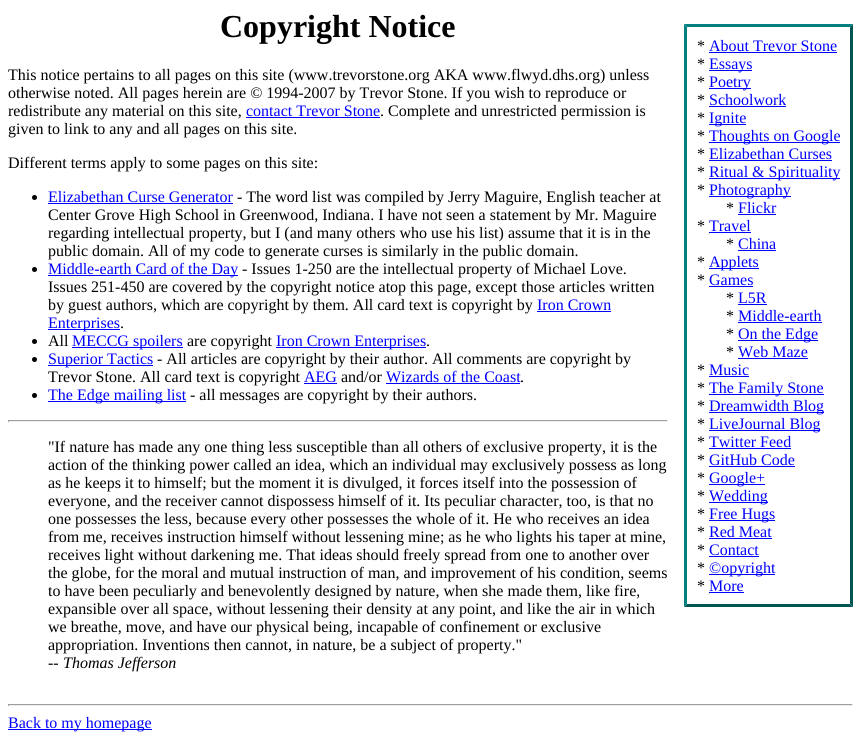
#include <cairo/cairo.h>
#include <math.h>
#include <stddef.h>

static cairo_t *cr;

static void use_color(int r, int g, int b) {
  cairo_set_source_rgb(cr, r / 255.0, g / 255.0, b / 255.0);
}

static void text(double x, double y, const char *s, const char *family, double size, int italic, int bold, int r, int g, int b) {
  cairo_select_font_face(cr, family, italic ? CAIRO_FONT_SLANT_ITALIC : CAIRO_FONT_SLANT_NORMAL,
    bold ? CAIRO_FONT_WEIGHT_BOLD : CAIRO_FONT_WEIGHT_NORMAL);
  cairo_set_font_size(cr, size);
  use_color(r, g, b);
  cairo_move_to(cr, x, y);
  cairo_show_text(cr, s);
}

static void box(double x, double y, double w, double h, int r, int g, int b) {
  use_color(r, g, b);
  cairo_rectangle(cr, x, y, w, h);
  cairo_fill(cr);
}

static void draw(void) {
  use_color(255, 255, 255);
  cairo_paint(cr);
  box(246, 117, 134, 1, 0, 0, 255);
  use_color(0, 128, 128);
  cairo_new_path(cr);
  cairo_move_to(cr, 684, 24);
  cairo_line_to(cr, 853, 24);
  cairo_line_to(cr, 850, 27);
  cairo_line_to(cr, 687, 27);
  cairo_close_path(cr);
  cairo_fill(cr);
  use_color(0, 85, 85);
  cairo_new_path(cr);
  cairo_move_to(cr, 853, 24);
  cairo_line_to(cr, 853, 607);
  cairo_line_to(cr, 850, 604);
  cairo_line_to(cr, 850, 27);
  cairo_close_path(cr);
  cairo_fill(cr);
  cairo_new_path(cr);
  cairo_move_to(cr, 853, 607);
  cairo_line_to(cr, 684, 607);
  cairo_line_to(cr, 687, 604);
  cairo_line_to(cr, 850, 604);
  cairo_close_path(cr);
  cairo_fill(cr);
  use_color(0, 128, 128);
  cairo_new_path(cr);
  cairo_move_to(cr, 684, 607);
  cairo_line_to(cr, 684, 24);
  cairo_line_to(cr, 687, 27);
  cairo_line_to(cr, 687, 604);
  cairo_close_path(cr);
  cairo_fill(cr);
  box(709, 52, 128, 1, 0, 0, 255);
  box(709, 70, 43, 1, 0, 0, 255);
  box(709, 88, 42, 1, 0, 0, 255);
  box(709, 106, 77, 1, 0, 0, 255);
  box(709, 124, 37, 1, 0, 0, 255);
  box(709, 142, 131, 1, 0, 0, 255);
  box(709, 160, 123, 1, 0, 0, 255);
  box(709, 178, 131, 1, 0, 0, 255);
  box(709, 196, 82, 1, 0, 0, 255);
  box(738, 214, 38, 1, 0, 0, 255);
  box(709, 232, 42, 1, 0, 0, 255);
  box(738, 250, 38, 1, 0, 0, 255);
  box(709, 268, 50, 1, 0, 0, 255);
  box(709, 286, 44, 1, 0, 0, 255);
  box(738, 304, 29, 1, 0, 0, 255);
  box(738, 322, 84, 1, 0, 0, 255);
  box(738, 340, 80, 1, 0, 0, 255);
  box(738, 358, 70, 1, 0, 0, 255);
  box(709, 376, 40, 1, 0, 0, 255);
  box(709, 394, 115, 1, 0, 0, 255);
  box(709, 412, 115, 1, 0, 0, 255);
  box(709, 430, 111, 1, 0, 0, 255);
  box(709, 448, 82, 1, 0, 0, 255);
  box(709, 466, 86, 1, 0, 0, 255);
  box(709, 484, 56, 1, 0, 0, 255);
  box(709, 502, 59, 1, 0, 0, 255);
  box(709, 520, 66, 1, 0, 0, 255);
  box(709, 538, 63, 1, 0, 0, 255);
  box(709, 556, 50, 1, 0, 0, 255);
  box(709, 574, 66, 1, 0, 0, 255);
  box(709, 592, 35, 1, 0, 0, 255);
  use_color(0, 0, 0);
  cairo_arc(cr, 34.5, 197.5, 2.5, 0, 2 * M_PI);
  cairo_fill(cr);
  box(48, 203, 185, 1, 0, 0, 255);
  use_color(0, 0, 0);
  cairo_arc(cr, 34.5, 269.5, 2.5, 0, 2 * M_PI);
  cairo_fill(cr);
  box(48, 275, 190, 1, 0, 0, 255);
  box(537, 311, 74, 1, 0, 0, 255);
  box(48, 329, 72, 1, 0, 0, 255);
  use_color(0, 0, 0);
  cairo_arc(cr, 34.5, 341.5, 2.5, 0, 2 * M_PI);
  cairo_fill(cr);
  box(72, 347, 111, 1, 0, 0, 255);
  box(276, 347, 150, 1, 0, 0, 255);
  use_color(0, 0, 0);
  cairo_arc(cr, 34.5, 359.5, 2.5, 0, 2 * M_PI);
  cairo_fill(cr);
  box(48, 365, 105, 1, 0, 0, 255);
  box(304, 383, 33, 1, 0, 0, 255);
  box(386, 383, 134, 1, 0, 0, 255);
  use_color(0, 0, 0);
  cairo_arc(cr, 34.5, 395.5, 2.5, 0, 2 * M_PI);
  cairo_fill(cr);
  box(48, 401, 138, 1, 0, 0, 255);
  box(8, 420, 660, 1, 159, 159, 159);
  box(667, 420, 1, 2, 238, 238, 238);
  box(8, 421, 660, 1, 238, 238, 238);
  box(8, 420, 1, 2, 159, 159, 159);
  box(8, 704, 845, 1, 159, 159, 159);
  box(852, 704, 1, 2, 238, 238, 238);
  box(8, 705, 845, 1, 238, 238, 238);
  box(8, 704, 1, 2, 159, 159, 159);
  box(8, 729, 144, 1, 0, 0, 255);
  text(220, 37, "Copyright Notice", "Liberation Serif", 32, 0, 1, 0, 0, 0);
  text(8, 80, "This notice pertains to all pages on this site (www.trevorstone.org AKA www.flwyd.dhs.org) unless", "Liberation Serif", 16, 0, 0, 0, 0, 0);
  text(8, 98, "otherwise noted. All pages herein are © 1994-2007 by Trevor Stone. If you wish to reproduce or", "Liberation Serif", 16, 0, 0, 0, 0, 0);
  text(8, 116, "redistribute any material on this site,", "Liberation Serif", 16, 0, 0, 0, 0, 0);
  text(246, 116, "contact Trevor Stone", "Liberation Serif", 16, 0, 0, 0, 0, 255);
  text(380, 116, ". Complete and unrestricted permission is", "Liberation Serif", 16, 0, 0, 0, 0, 0);
  text(8, 134, "given to link to any and all pages on this site.", "Liberation Serif", 16, 0, 0, 0, 0, 0);
  text(697, 51, "*", "Liberation Serif", 16, 0, 0, 0, 0, 0);
  text(709, 51, "About Trevor Stone", "Liberation Serif", 16, 0, 0, 0, 0, 255);
  text(697, 69, "*", "Liberation Serif", 16, 0, 0, 0, 0, 0);
  text(709, 69, "Essays", "Liberation Serif", 16, 0, 0, 0, 0, 255);
  text(697, 87, "*", "Liberation Serif", 16, 0, 0, 0, 0, 0);
  text(709, 87, "Poetry", "Liberation Serif", 16, 0, 0, 0, 0, 255);
  text(697, 105, "*", "Liberation Serif", 16, 0, 0, 0, 0, 0);
  text(709, 105, "Schoolwork", "Liberation Serif", 16, 0, 0, 0, 0, 255);
  text(697, 123, "*", "Liberation Serif", 16, 0, 0, 0, 0, 0);
  text(709, 123, "Ignite", "Liberation Serif", 16, 0, 0, 0, 0, 255);
  text(697, 141, "*", "Liberation Serif", 16, 0, 0, 0, 0, 0);
  text(709, 141, "Thoughts on Google", "Liberation Serif", 16, 0, 0, 0, 0, 255);
  text(697, 159, "*", "Liberation Serif", 16, 0, 0, 0, 0, 0);
  text(709, 159, "Elizabethan Curses", "Liberation Serif", 16, 0, 0, 0, 0, 255);
  text(697, 177, "*", "Liberation Serif", 16, 0, 0, 0, 0, 0);
  text(709, 177, "Ritual & Spirituality", "Liberation Serif", 16, 0, 0, 0, 0, 255);
  text(697, 195, "*", "Liberation Serif", 16, 0, 0, 0, 0, 0);
  text(709, 195, "Photography", "Liberation Serif", 16, 0, 0, 0, 0, 255);
  text(726, 213, "*", "Liberation Serif", 16, 0, 0, 0, 0, 0);
  text(738, 213, "Flickr", "Liberation Serif", 16, 0, 0, 0, 0, 255);
  text(697, 231, "*", "Liberation Serif", 16, 0, 0, 0, 0, 0);
  text(709, 231, "Travel", "Liberation Serif", 16, 0, 0, 0, 0, 255);
  text(726, 249, "*", "Liberation Serif", 16, 0, 0, 0, 0, 0);
  text(738, 249, "China", "Liberation Serif", 16, 0, 0, 0, 0, 255);
  text(697, 267, "*", "Liberation Serif", 16, 0, 0, 0, 0, 0);
  text(709, 267, "Applets", "Liberation Serif", 16, 0, 0, 0, 0, 255);
  text(697, 285, "*", "Liberation Serif", 16, 0, 0, 0, 0, 0);
  text(709, 285, "Games", "Liberation Serif", 16, 0, 0, 0, 0, 255);
  text(726, 303, "*", "Liberation Serif", 16, 0, 0, 0, 0, 0);
  text(738, 303, "L5R", "Liberation Serif", 16, 0, 0, 0, 0, 255);
  text(726, 321, "*", "Liberation Serif", 16, 0, 0, 0, 0, 0);
  text(738, 321, "Middle-earth", "Liberation Serif", 16, 0, 0, 0, 0, 255);
  text(726, 339, "*", "Liberation Serif", 16, 0, 0, 0, 0, 0);
  text(738, 339, "On the Edge", "Liberation Serif", 16, 0, 0, 0, 0, 255);
  text(726, 357, "*", "Liberation Serif", 16, 0, 0, 0, 0, 0);
  text(738, 357, "Web Maze", "Liberation Serif", 16, 0, 0, 0, 0, 255);
  text(697, 375, "*", "Liberation Serif", 16, 0, 0, 0, 0, 0);
  text(709, 375, "Music", "Liberation Serif", 16, 0, 0, 0, 0, 255);
  text(697, 393, "*", "Liberation Serif", 16, 0, 0, 0, 0, 0);
  text(709, 393, "The Family Stone", "Liberation Serif", 16, 0, 0, 0, 0, 255);
  text(697, 411, "*", "Liberation Serif", 16, 0, 0, 0, 0, 0);
  text(709, 411, "Dreamwidth Blog", "Liberation Serif", 16, 0, 0, 0, 0, 255);
  text(697, 429, "*", "Liberation Serif", 16, 0, 0, 0, 0, 0);
  text(709, 429, "LiveJournal Blog", "Liberation Serif", 16, 0, 0, 0, 0, 255);
  text(697, 447, "*", "Liberation Serif", 16, 0, 0, 0, 0, 0);
  text(709, 447, "Twitter Feed", "Liberation Serif", 16, 0, 0, 0, 0, 255);
  text(697, 465, "*", "Liberation Serif", 16, 0, 0, 0, 0, 0);
  text(709, 465, "GitHub Code", "Liberation Serif", 16, 0, 0, 0, 0, 255);
  text(697, 483, "*", "Liberation Serif", 16, 0, 0, 0, 0, 0);
  text(709, 483, "Google+", "Liberation Serif", 16, 0, 0, 0, 0, 255);
  text(697, 501, "*", "Liberation Serif", 16, 0, 0, 0, 0, 0);
  text(709, 501, "Wedding", "Liberation Serif", 16, 0, 0, 0, 0, 255);
  text(697, 519, "*", "Liberation Serif", 16, 0, 0, 0, 0, 0);
  text(709, 519, "Free Hugs", "Liberation Serif", 16, 0, 0, 0, 0, 255);
  text(697, 537, "*", "Liberation Serif", 16, 0, 0, 0, 0, 0);
  text(709, 537, "Red Meat", "Liberation Serif", 16, 0, 0, 0, 0, 255);
  text(697, 555, "*", "Liberation Serif", 16, 0, 0, 0, 0, 0);
  text(709, 555, "Contact", "Liberation Serif", 16, 0, 0, 0, 0, 255);
  text(697, 573, "*", "Liberation Serif", 16, 0, 0, 0, 0, 0);
  text(709, 573, "©opyright", "Liberation Serif", 16, 0, 0, 0, 0, 255);
  text(697, 591, "*", "Liberation Serif", 16, 0, 0, 0, 0, 0);
  text(709, 591, "More", "Liberation Serif", 16, 0, 0, 0, 0, 255);
  text(8, 168, "Different terms apply to some pages on this site:", "Liberation Serif", 16, 0, 0, 0, 0, 0);
  text(48, 202, "Elizabethan Curse Generator", "Liberation Serif", 16, 0, 0, 0, 0, 255);
  text(237, 202, "- The word list was compiled by Jerry Maguire, English teacher at", "Liberation Serif", 16, 0, 0, 0, 0, 0);
  text(48, 220, "Center Grove High School in Greenwood, Indiana. I have not seen a statement by Mr. Maguire", "Liberation Serif", 16, 0, 0, 0, 0, 0);
  text(48, 238, "regarding intellectual property, but I (and many others who use his list) assume that it is in the", "Liberation Serif", 16, 0, 0, 0, 0, 0);
  text(48, 256, "public domain. All of my code to generate curses is similarly in the public domain.", "Liberation Serif", 16, 0, 0, 0, 0, 0);
  text(48, 274, "Middle-earth Card of the Day", "Liberation Serif", 16, 0, 0, 0, 0, 255);
  text(242, 274, "- Issues 1-250 are the intellectual property of Michael Love.", "Liberation Serif", 16, 0, 0, 0, 0, 0);
  text(48, 292, "Issues 251-450 are covered by the copyright notice atop this page, except those articles written", "Liberation Serif", 16, 0, 0, 0, 0, 0);
  text(48, 310, "by guest authors, which are copyright by them. All card text is copyright by", "Liberation Serif", 16, 0, 0, 0, 0, 0);
  text(537, 310, "Iron Crown", "Liberation Serif", 16, 0, 0, 0, 0, 255);
  text(48, 328, "Enterprises", "Liberation Serif", 16, 0, 0, 0, 0, 255);
  text(120, 328, ".", "Liberation Serif", 16, 0, 0, 0, 0, 0);
  text(48, 346, "All", "Liberation Serif", 16, 0, 0, 0, 0, 0);
  text(72, 346, "MECCG spoilers", "Liberation Serif", 16, 0, 0, 0, 0, 255);
  text(187, 346, "are copyright", "Liberation Serif", 16, 0, 0, 0, 0, 0);
  text(276, 346, "Iron Crown Enterprises", "Liberation Serif", 16, 0, 0, 0, 0, 255);
  text(426, 346, ".", "Liberation Serif", 16, 0, 0, 0, 0, 0);
  text(48, 364, "Superior Tactics", "Liberation Serif", 16, 0, 0, 0, 0, 255);
  text(157, 364, "- All articles are copyright by their author. All comments are copyright by", "Liberation Serif", 16, 0, 0, 0, 0, 0);
  text(48, 382, "Trevor Stone. All card text is copyright", "Liberation Serif", 16, 0, 0, 0, 0, 0);
  text(304, 382, "AEG", "Liberation Serif", 16, 0, 0, 0, 0, 255);
  text(341, 382, "and/or", "Liberation Serif", 16, 0, 0, 0, 0, 0);
  text(386, 382, "Wizards of the Coast", "Liberation Serif", 16, 0, 0, 0, 0, 255);
  text(520, 382, ".", "Liberation Serif", 16, 0, 0, 0, 0, 0);
  text(48, 400, "The Edge mailing list", "Liberation Serif", 16, 0, 0, 0, 0, 255);
  text(190, 400, "- all messages are copyright by their authors.", "Liberation Serif", 16, 0, 0, 0, 0, 0);
  text(48, 452, "\"If nature has made any one thing less susceptible than all others of exclusive property, it is the", "Liberation Serif", 16, 0, 0, 0, 0, 0);
  text(48, 470, "action of the thinking power called an idea, which an individual may exclusively possess as long", "Liberation Serif", 16, 0, 0, 0, 0, 0);
  text(48, 488, "as he keeps it to himself; but the moment it is divulged, it forces itself into the possession of", "Liberation Serif", 16, 0, 0, 0, 0, 0);
  text(48, 506, "everyone, and the receiver cannot dispossess himself of it. Its peculiar character, too, is that no", "Liberation Serif", 16, 0, 0, 0, 0, 0);
  text(48, 524, "one possesses the less, because every other possesses the whole of it. He who receives an idea", "Liberation Serif", 16, 0, 0, 0, 0, 0);
  text(48, 542, "from me, receives instruction himself without lessening mine; as he who lights his taper at mine,", "Liberation Serif", 16, 0, 0, 0, 0, 0);
  text(48, 560, "receives light without darkening me. That ideas should freely spread from one to another over", "Liberation Serif", 16, 0, 0, 0, 0, 0);
  text(48, 578, "the globe, for the moral and mutual instruction of man, and improvement of his condition, seems", "Liberation Serif", 16, 0, 0, 0, 0, 0);
  text(48, 596, "to have been peculiarly and benevolently designed by nature, when she made them, like fire,", "Liberation Serif", 16, 0, 0, 0, 0, 0);
  text(48, 614, "expansible over all space, without lessening their density at any point, and like the air in which", "Liberation Serif", 16, 0, 0, 0, 0, 0);
  text(48, 632, "we breathe, move, and have our physical being, incapable of confinement or exclusive", "Liberation Serif", 16, 0, 0, 0, 0, 0);
  text(48, 650, "appropriation. Inventions then cannot, in nature, be a subject of property.\"", "Liberation Serif", 16, 0, 0, 0, 0, 0);
  text(48, 668, "--", "Liberation Serif", 16, 0, 0, 0, 0, 0);
  text(63, 668, "Thomas Jefferson", "Liberation Serif", 16, 1, 0, 0, 0, 0);
  text(8, 728, "Back to my homepage", "Liberation Serif", 16, 0, 0, 0, 0, 255);
}

int main(void) {
  cairo_surface_t *surface = cairo_image_surface_create(CAIRO_FORMAT_RGB24, 861, 737);
  cr = cairo_create(surface);
  cairo_font_options_t *options = cairo_font_options_create();
  cairo_font_options_set_hint_metrics(options, CAIRO_HINT_METRICS_OFF);
  cairo_font_options_set_hint_style(options, CAIRO_HINT_STYLE_NONE);
  cairo_set_font_options(cr, options);
  cairo_set_miter_limit(cr, 4);
  draw();
  cairo_surface_write_to_png(surface, "out.png");
  cairo_font_options_destroy(options);
  cairo_destroy(cr);
  cairo_surface_destroy(surface);
  return 0;
}
